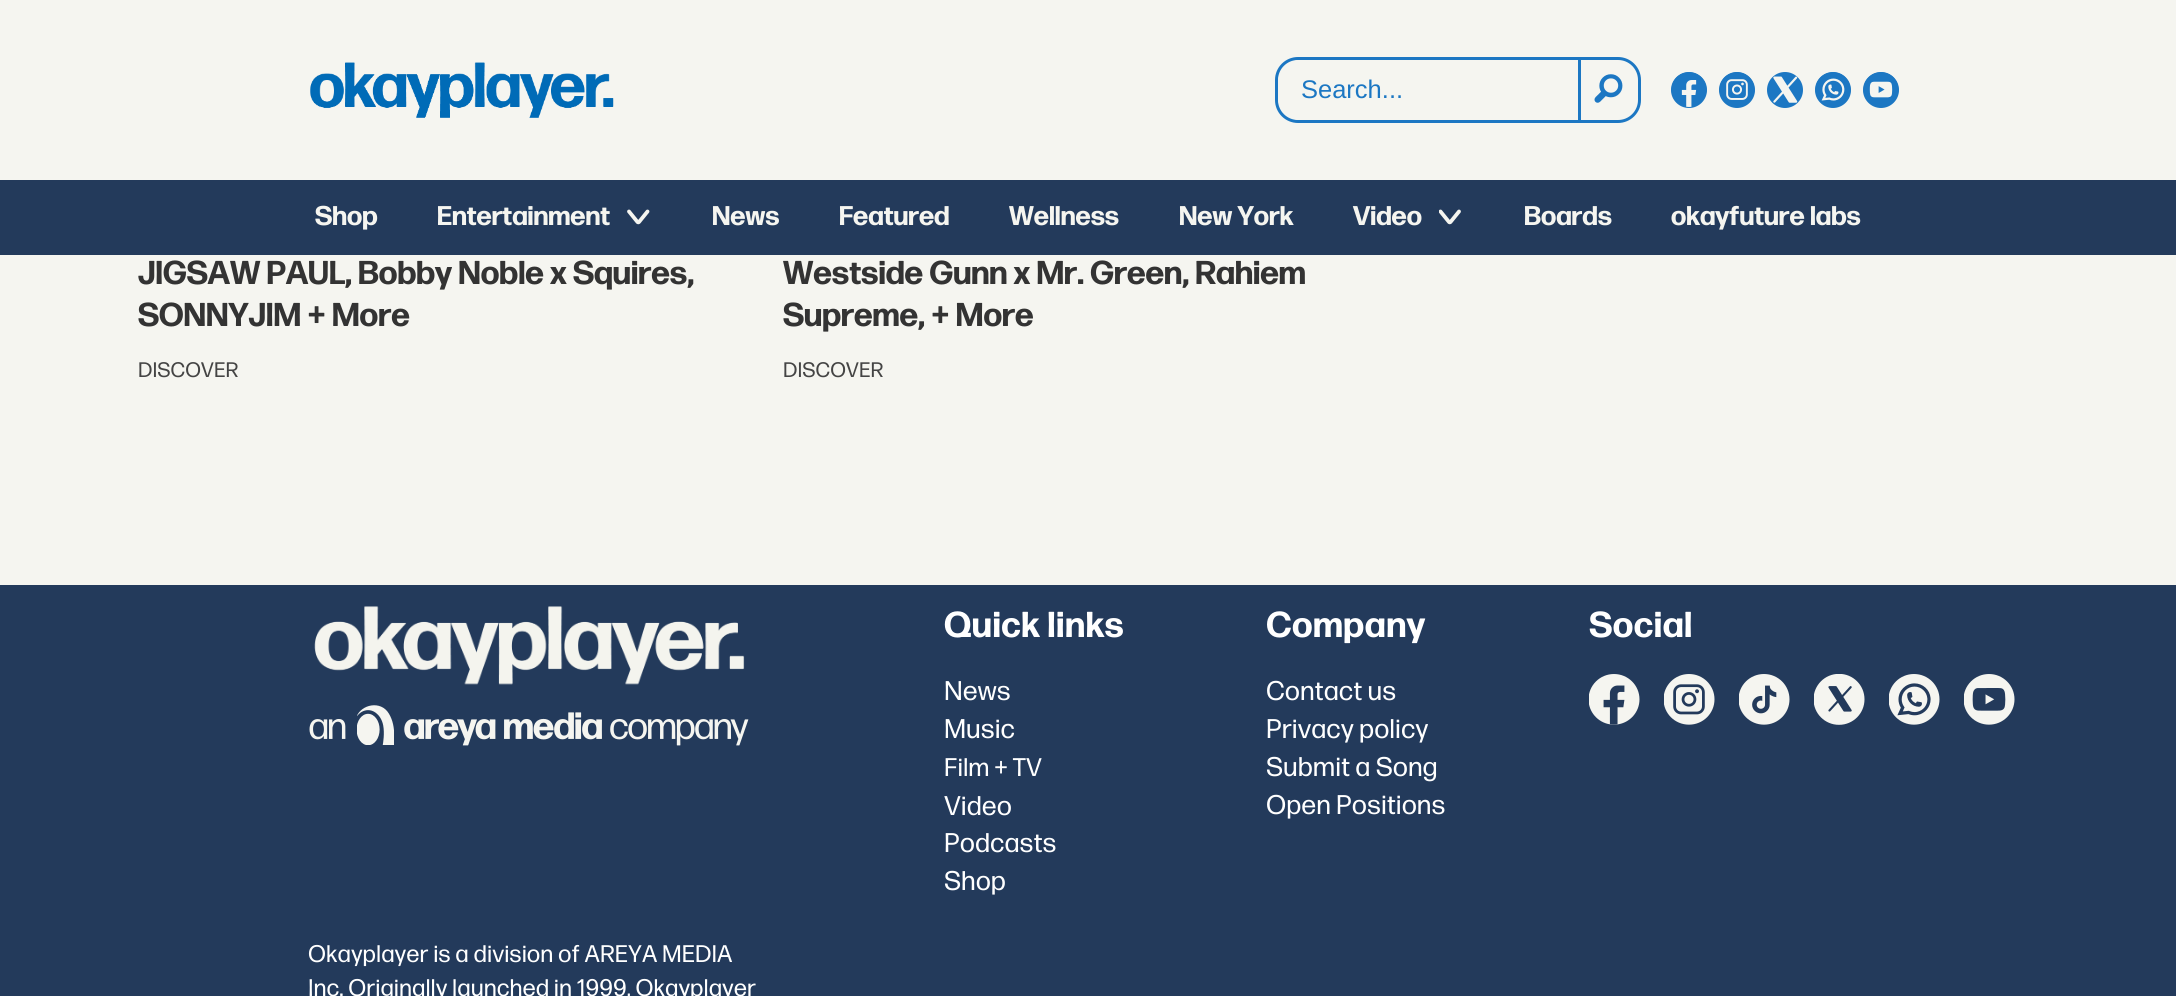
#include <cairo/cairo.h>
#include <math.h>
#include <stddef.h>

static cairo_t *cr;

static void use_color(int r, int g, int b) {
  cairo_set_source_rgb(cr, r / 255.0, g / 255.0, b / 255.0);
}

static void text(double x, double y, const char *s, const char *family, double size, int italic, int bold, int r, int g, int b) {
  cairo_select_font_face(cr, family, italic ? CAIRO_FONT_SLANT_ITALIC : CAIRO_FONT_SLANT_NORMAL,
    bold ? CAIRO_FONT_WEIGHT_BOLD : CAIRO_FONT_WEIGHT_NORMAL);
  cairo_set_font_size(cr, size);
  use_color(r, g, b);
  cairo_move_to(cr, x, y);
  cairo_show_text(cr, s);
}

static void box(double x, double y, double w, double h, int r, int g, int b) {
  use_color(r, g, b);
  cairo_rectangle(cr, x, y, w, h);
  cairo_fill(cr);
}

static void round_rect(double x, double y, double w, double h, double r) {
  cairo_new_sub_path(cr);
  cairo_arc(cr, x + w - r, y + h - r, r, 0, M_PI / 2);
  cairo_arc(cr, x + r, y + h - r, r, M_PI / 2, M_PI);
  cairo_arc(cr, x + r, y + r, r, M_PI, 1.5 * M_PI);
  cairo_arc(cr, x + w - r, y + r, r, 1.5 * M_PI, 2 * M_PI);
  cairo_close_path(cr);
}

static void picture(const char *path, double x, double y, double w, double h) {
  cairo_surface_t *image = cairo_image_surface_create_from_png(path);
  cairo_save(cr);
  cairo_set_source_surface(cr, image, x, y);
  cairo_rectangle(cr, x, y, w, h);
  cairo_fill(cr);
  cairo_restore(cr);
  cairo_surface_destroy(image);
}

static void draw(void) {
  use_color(245, 245, 240);
  cairo_paint(cr);
  picture("img_01.png", 310, 62, 304, 56);
  round_rect(1276.5, 58.5, 363, 63, 21.5);
  use_color(28, 119, 195);
  cairo_set_line_width(cr, 3);
  cairo_stroke(cr);
  use_color(245, 245, 240);
  round_rect(1278, 60, 300, 60, 23);
  cairo_fill(cr);
  box(1578, 60, 3, 60, 28, 119, 195);
  picture("img_02.png", 1594, 74, 29, 29);
  cairo_arc(cr, 1689, 90, 18, 0, 2 * M_PI);
  cairo_fill(cr);
  picture("img_03.png", 1671, 72, 36, 35);
  cairo_arc(cr, 1737, 90, 18, 0, 2 * M_PI);
  cairo_fill(cr);
  picture("img_04.png", 1719, 72, 36, 28);
  cairo_arc(cr, 1785, 90, 18, 0, 2 * M_PI);
  cairo_fill(cr);
  picture("img_05.png", 1773, 76, 25, 27);
  cairo_arc(cr, 1833, 90, 18, 0, 2 * M_PI);
  cairo_fill(cr);
  picture("img_06.png", 1815, 72, 36, 29);
  cairo_arc(cr, 1881, 90, 18, 0, 2 * M_PI);
  cairo_fill(cr);
  picture("img_07.png", 1863, 72, 36, 26);
  box(0, 180, 2176, 75, 35, 58, 91);
  cairo_new_path(cr);
  cairo_move_to(cr, 629, 211.5);
  cairo_line_to(cr, 637.5, 222);
  cairo_curve_to(cr, 638, 222.5, 638.5, 222.5, 639, 222);
  cairo_line_to(cr, 647.5, 211.5);
  use_color(245, 245, 240);
  cairo_set_line_width(cr, 3.8);
  cairo_set_line_cap(cr, CAIRO_LINE_CAP_ROUND);
  cairo_stroke(cr);
  cairo_save(cr);
  cairo_rectangle(cr, 1439, 209, 22, 18);
  cairo_clip(cr);
  cairo_new_path(cr);
  cairo_move_to(cr, 1440.5, 211.5);
  cairo_line_to(cr, 1449, 222);
  cairo_curve_to(cr, 1449.5, 222.5, 1450, 222.5, 1450.5, 222);
  cairo_line_to(cr, 1459, 211.5);
  cairo_stroke(cr);
  cairo_restore(cr);
  box(0, 585, 2176, 411, 35, 58, 91);
  picture("img_08.png", 314, 606, 431, 79);
  picture("img_09.png", 309, 705, 440, 41);
  picture("img_10.png", 1589, 674, 51, 51);
  picture("img_11.png", 1664, 674, 51, 51);
  picture("img_12.png", 1739, 674, 51, 51);
  picture("img_13.png", 1814, 674, 51, 51);
  picture("img_14.png", 1889, 674, 51, 51);
  picture("img_15.png", 1964, 674, 51, 51);
  text(1301, 98, "Search...", "Liberation Sans", 25.5, 0, 0, 28, 119, 195);
  text(315, 225, "Shop", "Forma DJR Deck", 27, 0, 1, 245, 245, 240);
  text(437, 225, "Entertainment", "Forma DJR Deck", 27, 0, 1, 245, 245, 240);
  text(712, 225, "News", "Forma DJR Deck", 27, 0, 1, 245, 245, 240);
  text(839, 225, "Featured", "Forma DJR Deck", 27, 0, 1, 245, 245, 240);
  text(1009, 225, "Wellness", "Forma DJR Deck", 27, 0, 1, 245, 245, 240);
  text(1179, 225, "New York", "Forma DJR Deck", 27, 0, 1, 245, 245, 240);
  text(1353, 225, "Video", "Forma DJR Deck", 27, 0, 1, 245, 245, 240);
  text(1524, 225, "Boards", "Forma DJR Deck", 27, 0, 1, 245, 245, 240);
  text(1671, 225, "okayfuture labs", "Forma DJR Deck", 27, 0, 1, 245, 245, 240);
  text(138, 284, "JIGSAW PAUL, Bobby Noble x Squires,", "Forma DJR Deck", 33, 0, 1, 51, 51, 51);
  text(138, 326, "SONNYJIM + More", "Forma DJR Deck", 33, 0, 1, 51, 51, 51);
  text(138, 377, "DISCOVER", "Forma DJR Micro", 21, 0, 0, 68, 68, 68);
  text(783, 284, "Westside Gunn x Mr. Green, Rahiem", "Forma DJR Deck", 33, 0, 1, 51, 51, 51);
  text(783, 326, "Supreme, + More", "Forma DJR Deck", 33, 0, 1, 51, 51, 51);
  text(783, 377, "DISCOVER", "Forma DJR Micro", 21, 0, 0, 68, 68, 68);
  text(944, 637, "Quick links", "Forma DJR Micro", 36, 0, 1, 255, 255, 255);
  text(944, 700, "News", "Forma DJR Micro", 27, 0, 0, 255, 255, 255);
  text(944, 738, "Music", "Forma DJR Micro", 27, 0, 0, 255, 255, 255);
  text(944, 776, "Film + TV", "Forma DJR Micro", 25.5, 0, 0, 255, 255, 255);
  text(944, 815, "Video", "Forma DJR Micro", 27, 0, 0, 255, 255, 255);
  text(944, 852, "Podcasts", "Forma DJR Micro", 27, 0, 0, 255, 255, 255);
  text(944, 890, "Shop", "Forma DJR Micro", 27, 0, 0, 255, 255, 255);
  text(1266, 637, "Company", "Forma DJR Micro", 36, 0, 1, 255, 255, 255);
  text(1266, 700, "Contact us", "Forma DJR Micro", 27, 0, 0, 255, 255, 255);
  text(1266, 738, "Privacy policy", "Forma DJR Micro", 27, 0, 0, 255, 255, 255);
  text(1266, 776, "Submit a Song", "Forma DJR Micro", 27, 0, 0, 255, 255, 255);
  text(1266, 814, "Open Positions", "Forma DJR Micro", 27, 0, 0, 255, 255, 255);
  text(1589, 637, "Social", "Forma DJR Micro", 36, 0, 1, 255, 255, 255);
  text(308, 962, "Okayplayer is a division of AREYA MEDIA", "Forma DJR Micro", 24, 0, 0, 255, 255, 255);
  text(308, 996, "Inc. Originally launched in 1999, Okayplayer", "Forma DJR Micro", 24, 0, 0, 255, 255, 255);
}

int main(void) {
  cairo_surface_t *surface = cairo_image_surface_create(CAIRO_FORMAT_RGB24, 2176, 996);
  cr = cairo_create(surface);
  cairo_font_options_t *options = cairo_font_options_create();
  cairo_font_options_set_hint_metrics(options, CAIRO_HINT_METRICS_OFF);
  cairo_font_options_set_hint_style(options, CAIRO_HINT_STYLE_NONE);
  cairo_set_font_options(cr, options);
  cairo_set_miter_limit(cr, 4);
  draw();
  cairo_surface_write_to_png(surface, "out.png");
  cairo_font_options_destroy(options);
  cairo_destroy(cr);
  cairo_surface_destroy(surface);
  return 0;
}
